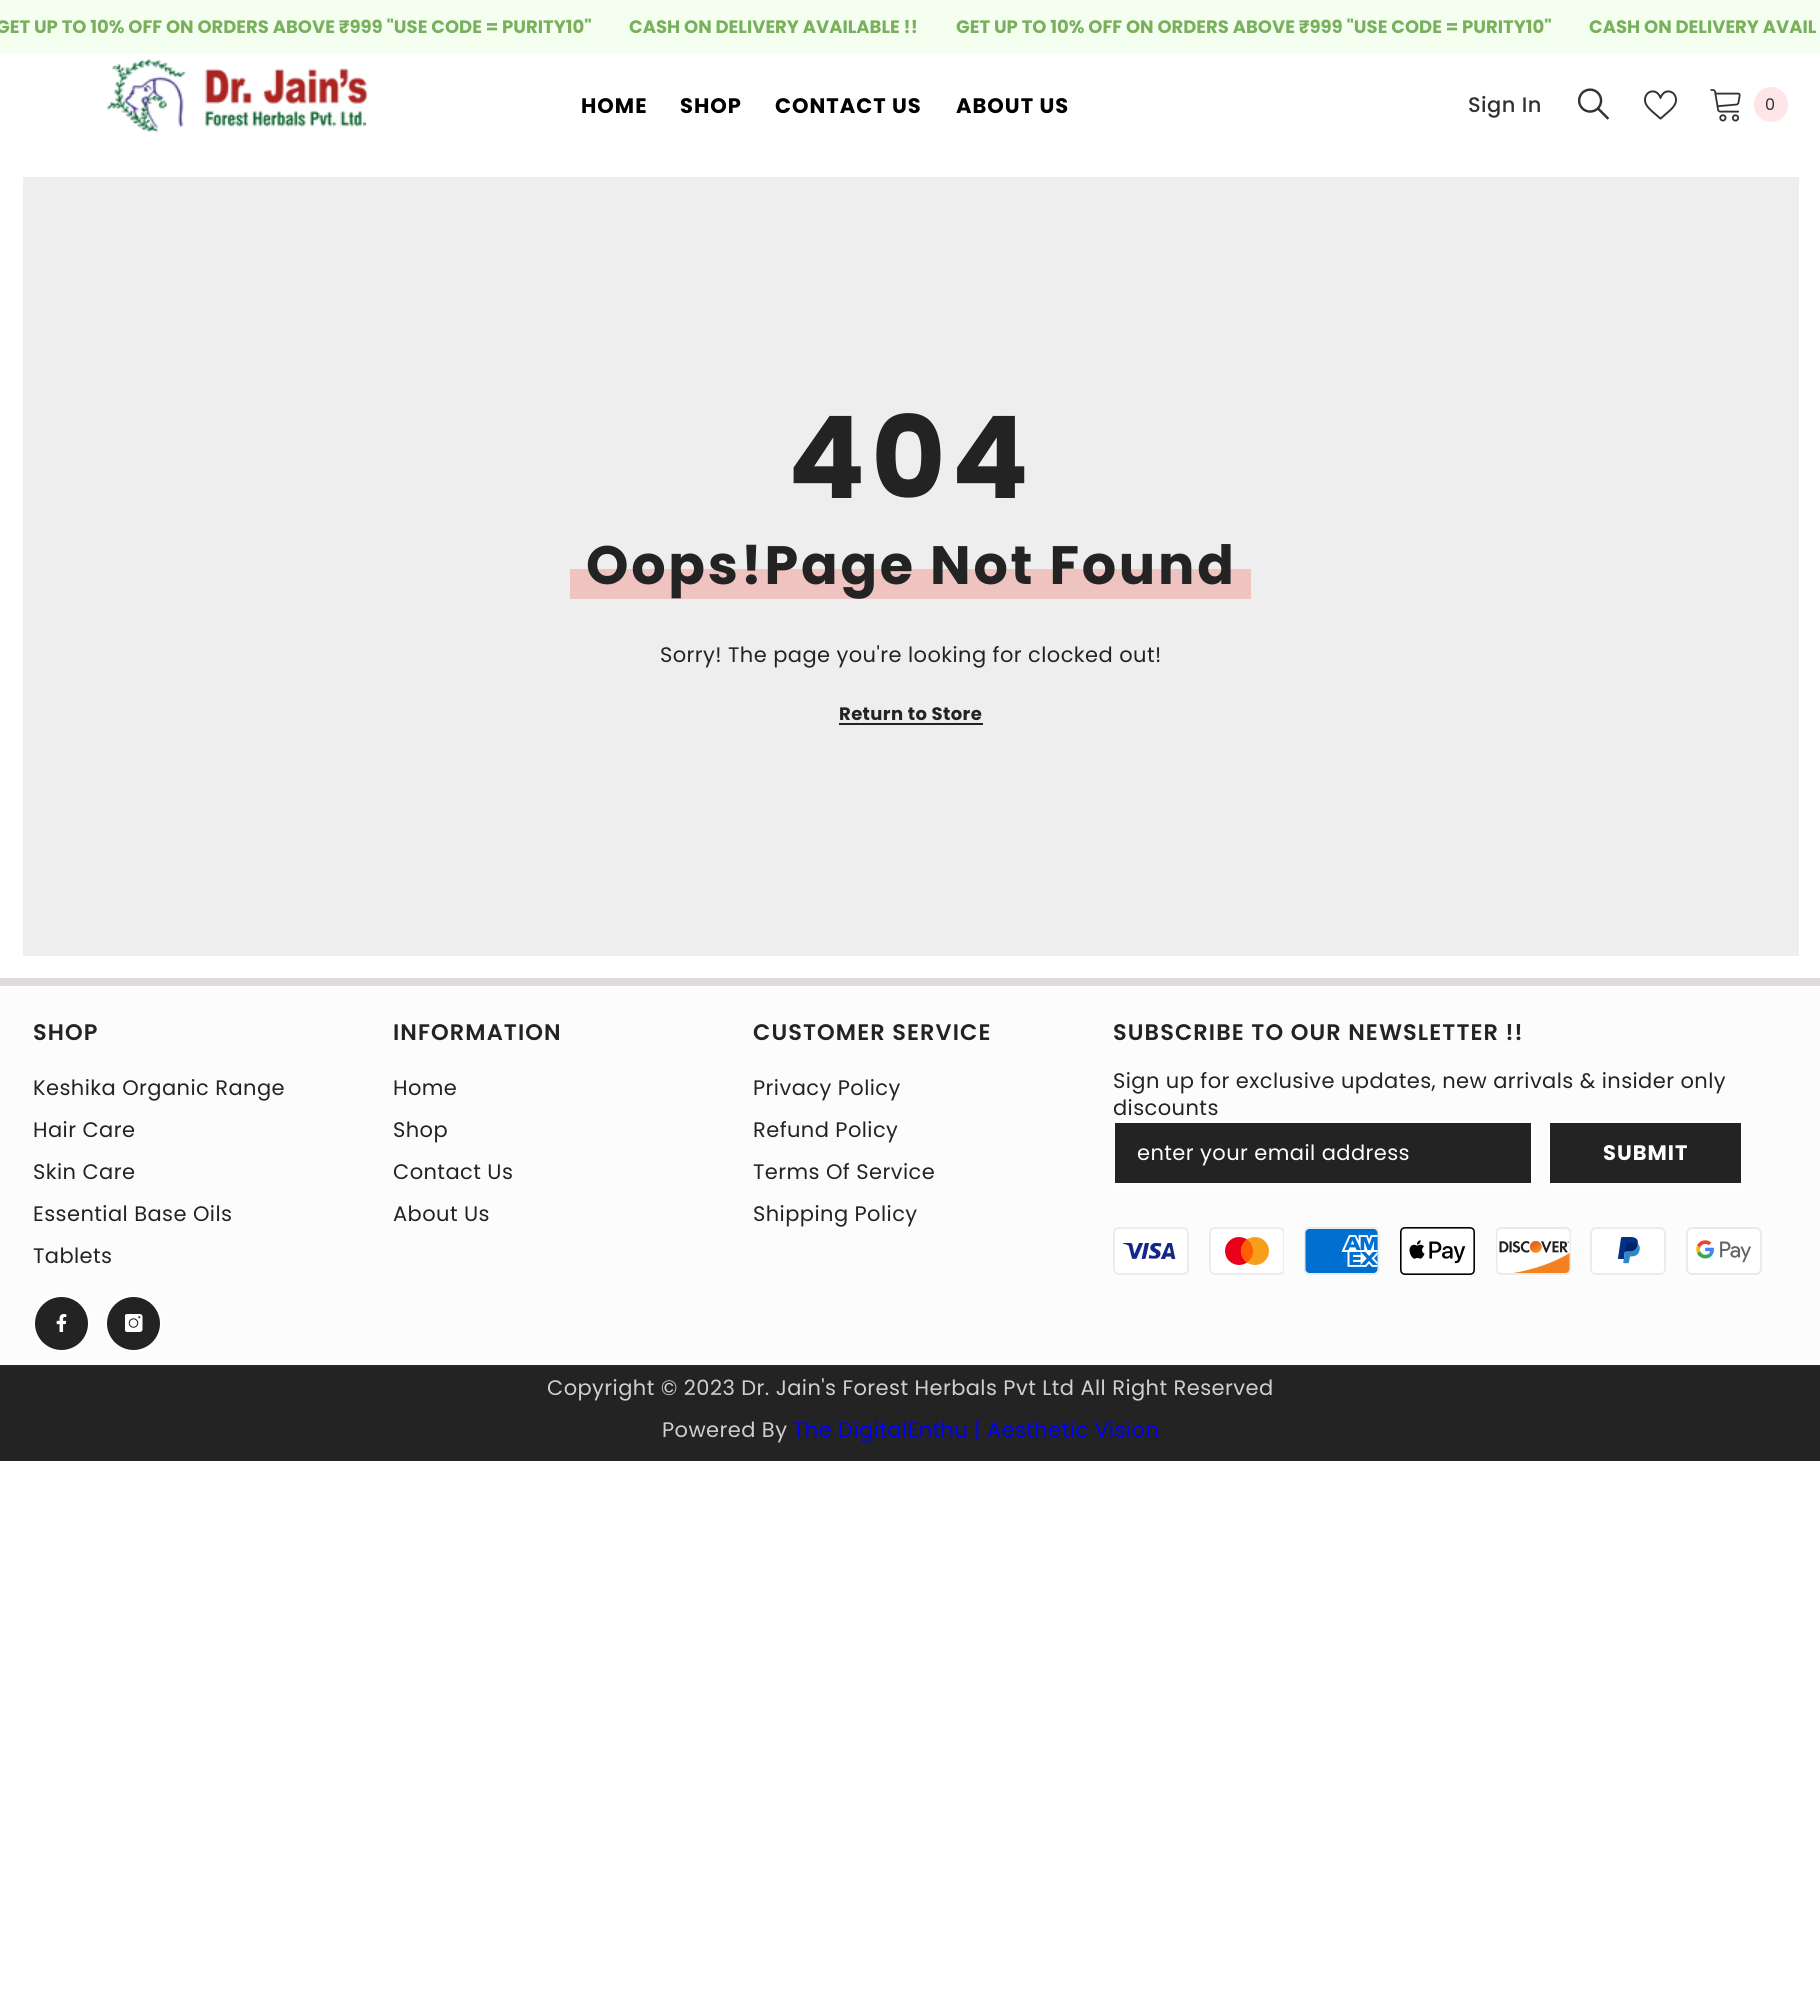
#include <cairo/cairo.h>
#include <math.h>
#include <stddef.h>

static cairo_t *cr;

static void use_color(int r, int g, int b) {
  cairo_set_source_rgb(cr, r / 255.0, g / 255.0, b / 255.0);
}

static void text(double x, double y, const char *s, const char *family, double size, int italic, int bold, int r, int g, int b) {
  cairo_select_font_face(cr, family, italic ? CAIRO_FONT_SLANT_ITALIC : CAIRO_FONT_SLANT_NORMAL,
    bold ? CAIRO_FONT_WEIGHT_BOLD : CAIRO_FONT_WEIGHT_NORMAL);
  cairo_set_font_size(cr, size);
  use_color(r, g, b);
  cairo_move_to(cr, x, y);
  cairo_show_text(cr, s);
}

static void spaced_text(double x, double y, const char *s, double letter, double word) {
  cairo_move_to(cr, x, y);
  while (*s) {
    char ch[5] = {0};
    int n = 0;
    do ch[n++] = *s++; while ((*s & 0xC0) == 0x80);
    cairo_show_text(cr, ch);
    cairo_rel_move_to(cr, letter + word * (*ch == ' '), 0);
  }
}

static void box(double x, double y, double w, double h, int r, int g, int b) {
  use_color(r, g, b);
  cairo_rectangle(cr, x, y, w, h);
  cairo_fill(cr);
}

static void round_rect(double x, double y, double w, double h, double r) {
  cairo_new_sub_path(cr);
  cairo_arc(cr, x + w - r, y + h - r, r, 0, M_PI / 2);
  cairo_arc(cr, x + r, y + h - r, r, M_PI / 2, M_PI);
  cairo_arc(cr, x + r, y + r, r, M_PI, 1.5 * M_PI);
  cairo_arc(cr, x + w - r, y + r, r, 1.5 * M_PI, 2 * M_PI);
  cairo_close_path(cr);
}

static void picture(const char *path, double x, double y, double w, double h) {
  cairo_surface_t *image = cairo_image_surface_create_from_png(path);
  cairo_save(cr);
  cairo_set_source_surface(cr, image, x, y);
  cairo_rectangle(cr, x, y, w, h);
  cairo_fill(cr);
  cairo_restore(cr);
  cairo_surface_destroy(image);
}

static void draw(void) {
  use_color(255, 255, 255);
  cairo_paint(cr);
  box(0, 0, 1820, 54, 245, 255, 240);
  picture("img_01.png", 106, 58, 262, 75);
  picture("img_02.png", 1577, 88, 33, 32);
  picture("img_03.png", 1644, 90, 33, 30);
  picture("img_04.png", 1710, 89, 31, 33);
  use_color(255, 229, 232);
  round_rect(1754, 87, 34, 35, 17);
  cairo_fill(cr);
  box(23, 177, 1776, 779, 238, 238, 238);
  box(570, 569, 681, 30, 239, 195, 192);
  box(839, 723, 144, 2, 35, 35, 35);
  box(0, 986, 1820, 379, 252, 252, 252);
  box(0, 978, 1820, 8, 224, 220, 220);
  use_color(35, 35, 35);
  cairo_arc(cr, 61.5, 1323.5, 27.5, 0, 2 * M_PI);
  cairo_fill_preserve(cr);
  use_color(255, 255, 255);
  cairo_stroke(cr);
  picture("img_05.png", 56, 1314, 11, 18);
  use_color(35, 35, 35);
  cairo_arc(cr, 133.5, 1323.5, 27.5, 0, 2 * M_PI);
  cairo_fill_preserve(cr);
  use_color(255, 255, 255);
  cairo_stroke(cr);
  picture("img_06.png", 125, 1314, 18, 18);
  use_color(35, 35, 35);
  cairo_rectangle(cr, 1114, 1122, 418, 62);
  cairo_fill_preserve(cr);
  use_color(255, 255, 255);
  cairo_stroke(cr);
  use_color(35, 35, 35);
  cairo_rectangle(cr, 1549, 1122, 193, 62);
  cairo_fill_preserve(cr);
  use_color(255, 255, 255);
  cairo_stroke(cr);
  picture("img_07.png", 1113, 1227, 76, 48);
  picture("img_08.png", 1209, 1227, 75, 48);
  picture("img_09.png", 1304, 1227, 76, 48);
  picture("img_10.png", 1400, 1227, 75, 48);
  picture("img_11.png", 1496, 1227, 75, 48);
  picture("img_12.png", 1590, 1227, 76, 48);
  picture("img_13.png", 1686, 1227, 76, 48);
  box(0, 1367, 1820, 94, 35, 35, 35);
  box(0, 1365, 1820, 2, 40, 40, 40);
  text(-4, 33, "GET UP TO 10% OFF ON ORDERS ABOVE ₹999 \"USE CODE = PURITY10\"", "Poppins", 18, 0, 1, 121, 176, 93);
  text(629, 33, "CASH ON DELIVERY AVAILABLE !!", "Poppins", 18, 0, 1, 121, 176, 93);
  text(956, 33, "GET UP TO 10% OFF ON ORDERS ABOVE ₹999 \"USE CODE = PURITY10\"", "Poppins", 18, 0, 1, 121, 176, 93);
  text(1589, 33, "CASH ON DELIVERY AVAIL", "Poppins", 18, 0, 1, 121, 176, 93);
  cairo_set_font_size(cr, 21);
  use_color(0, 0, 0);
  spaced_text(581, 113, "HOME", 1, 0);
  spaced_text(680, 113, "SHOP", 1, 0);
  spaced_text(775, 113, "CONTACT US", 1, 0);
  spaced_text(956, 113, "ABOUT US", 1, 0);
  cairo_select_font_face(cr, "Poppins Medium", CAIRO_FONT_SLANT_NORMAL, CAIRO_FONT_WEIGHT_NORMAL);
  use_color(50, 50, 50);
  spaced_text(1468, 112, "Sign In", 0.42, 0);
  text(1765, 110, "0", "Poppins", 16, 0, 0, 50, 50, 50);
  cairo_select_font_face(cr, "Poppins", CAIRO_FONT_SLANT_NORMAL, CAIRO_FONT_WEIGHT_BOLD);
  cairo_set_font_size(cr, 114);
  use_color(35, 35, 35);
  spaced_text(788, 498, "404", 6, 0);
  cairo_set_font_size(cr, 54);
  spaced_text(586, 584, "Oops!Page Not Found", 2.75, 0);
  cairo_select_font_face(cr, "Poppins", CAIRO_FONT_SLANT_NORMAL, CAIRO_FONT_WEIGHT_NORMAL);
  cairo_set_font_size(cr, 21);
  spaced_text(660, 662, "Sorry! The page you're looking for clocked out!", 0.42, 0);
  cairo_select_font_face(cr, "Poppins", CAIRO_FONT_SLANT_NORMAL, CAIRO_FONT_WEIGHT_BOLD);
  cairo_set_font_size(cr, 18);
  spaced_text(839, 720, "Return to Store", 0.4, 0);
  cairo_select_font_face(cr, "Poppins SemiBold", CAIRO_FONT_SLANT_NORMAL, CAIRO_FONT_WEIGHT_NORMAL);
  cairo_set_font_size(cr, 22.5);
  spaced_text(33, 1040, "SHOP", 1.1, 0);
  cairo_select_font_face(cr, "Poppins", CAIRO_FONT_SLANT_NORMAL, CAIRO_FONT_WEIGHT_NORMAL);
  cairo_set_font_size(cr, 21);
  spaced_text(33, 1095, "Keshika Organic Range", 0.42, 0);
  spaced_text(33, 1137, "Hair Care", 0.42, 0);
  spaced_text(33, 1179, "Skin Care", 0.42, 0);
  spaced_text(33, 1221, "Essential Base Oils", 0.42, 0);
  spaced_text(33, 1263, "Tablets", 0.42, 0);
  cairo_select_font_face(cr, "Poppins SemiBold", CAIRO_FONT_SLANT_NORMAL, CAIRO_FONT_WEIGHT_NORMAL);
  cairo_set_font_size(cr, 22.5);
  spaced_text(393, 1040, "INFORMATION", 1.1, 0);
  cairo_select_font_face(cr, "Poppins", CAIRO_FONT_SLANT_NORMAL, CAIRO_FONT_WEIGHT_NORMAL);
  cairo_set_font_size(cr, 21);
  spaced_text(393, 1095, "Home", 0.42, 0);
  spaced_text(393, 1137, "Shop", 0.42, 0);
  spaced_text(393, 1179, "Contact Us", 0.42, 0);
  spaced_text(393, 1221, "About Us", 0.42, 0);
  cairo_select_font_face(cr, "Poppins SemiBold", CAIRO_FONT_SLANT_NORMAL, CAIRO_FONT_WEIGHT_NORMAL);
  cairo_set_font_size(cr, 22.5);
  spaced_text(753, 1040, "CUSTOMER SERVICE", 1.1, 0);
  cairo_select_font_face(cr, "Poppins", CAIRO_FONT_SLANT_NORMAL, CAIRO_FONT_WEIGHT_NORMAL);
  cairo_set_font_size(cr, 21);
  spaced_text(753, 1095, "Privacy Policy", 0.42, 0);
  spaced_text(753, 1137, "Refund Policy", 0.42, 0);
  spaced_text(753, 1179, "Terms Of Service", 0.42, 0);
  spaced_text(753, 1221, "Shipping Policy", 0.42, 0);
  cairo_select_font_face(cr, "Poppins SemiBold", CAIRO_FONT_SLANT_NORMAL, CAIRO_FONT_WEIGHT_NORMAL);
  cairo_set_font_size(cr, 22.5);
  spaced_text(1113, 1040, "SUBSCRIBE TO OUR NEWSLETTER !!", 1.1, 0);
  cairo_select_font_face(cr, "Poppins", CAIRO_FONT_SLANT_NORMAL, CAIRO_FONT_WEIGHT_NORMAL);
  cairo_set_font_size(cr, 21);
  spaced_text(1113, 1088, "Sign up for exclusive updates, new arrivals & insider only", 0.42, 0);
  spaced_text(1113, 1115, "discounts", 0.42, 0);
  use_color(255, 255, 255);
  spaced_text(1137, 1160, "enter your email address", 0.42, 0);
  cairo_select_font_face(cr, "Poppins", CAIRO_FONT_SLANT_NORMAL, CAIRO_FONT_WEIGHT_BOLD);
  spaced_text(1603, 1160, "SUBMIT", 1, 0);
  cairo_select_font_face(cr, "Poppins", CAIRO_FONT_SLANT_NORMAL, CAIRO_FONT_WEIGHT_NORMAL);
  use_color(207, 207, 207);
  spaced_text(547, 1395, "Copyright © 2023 Dr. Jain's Forest Herbals Pvt Ltd All Right Reserved", 0.42, 0);
  spaced_text(662, 1437, "Powered By", 0.42, 0);
  use_color(0, 0, 255);
  spaced_text(793, 1437, "The DigitalEnthu | Aesthetic Vision", 0.42, 0);
}

int main(void) {
  cairo_surface_t *surface = cairo_image_surface_create(CAIRO_FORMAT_RGB24, 1820, 2003);
  cr = cairo_create(surface);
  cairo_font_options_t *options = cairo_font_options_create();
  cairo_font_options_set_hint_metrics(options, CAIRO_HINT_METRICS_OFF);
  cairo_font_options_set_hint_style(options, CAIRO_HINT_STYLE_NONE);
  cairo_set_font_options(cr, options);
  cairo_set_miter_limit(cr, 4);
  draw();
  cairo_surface_write_to_png(surface, "out.png");
  cairo_font_options_destroy(options);
  cairo_destroy(cr);
  cairo_surface_destroy(surface);
  return 0;
}
